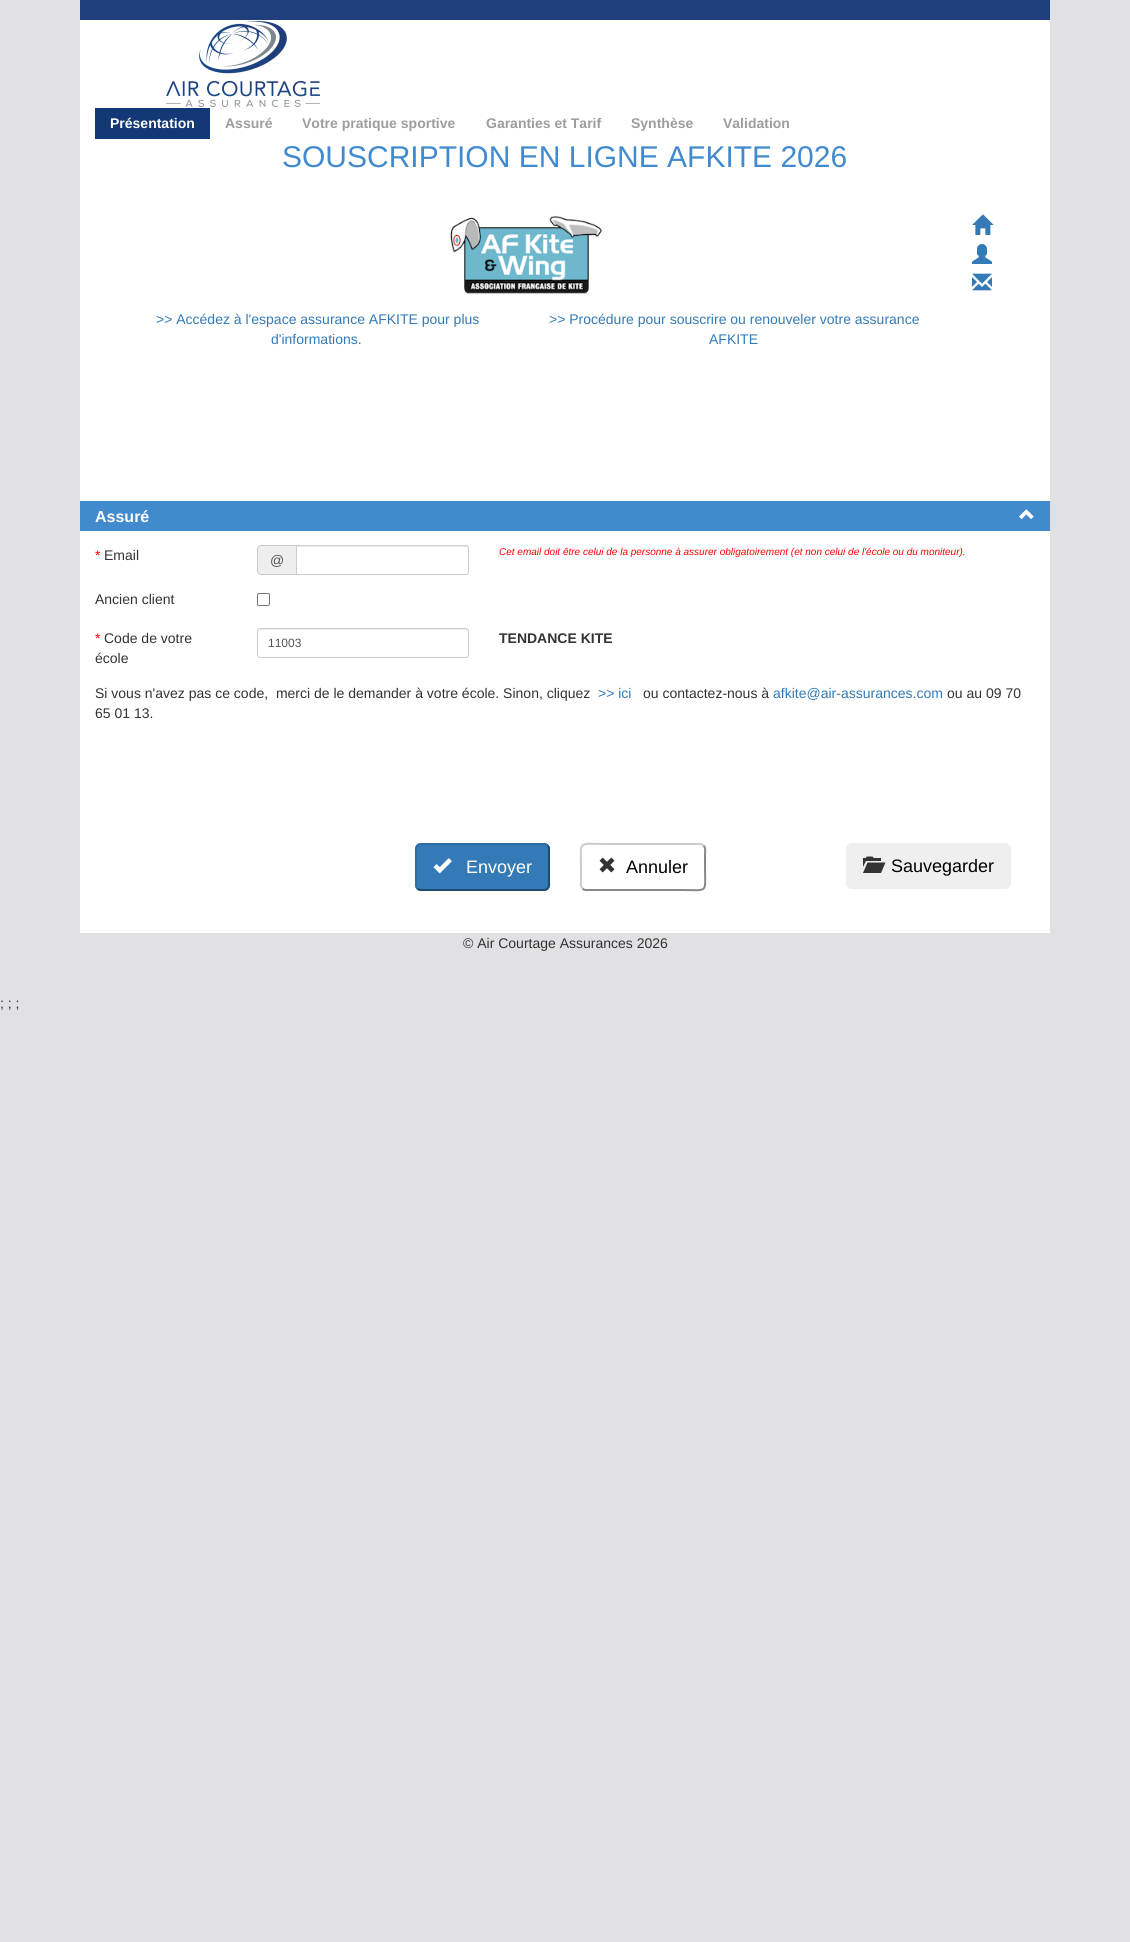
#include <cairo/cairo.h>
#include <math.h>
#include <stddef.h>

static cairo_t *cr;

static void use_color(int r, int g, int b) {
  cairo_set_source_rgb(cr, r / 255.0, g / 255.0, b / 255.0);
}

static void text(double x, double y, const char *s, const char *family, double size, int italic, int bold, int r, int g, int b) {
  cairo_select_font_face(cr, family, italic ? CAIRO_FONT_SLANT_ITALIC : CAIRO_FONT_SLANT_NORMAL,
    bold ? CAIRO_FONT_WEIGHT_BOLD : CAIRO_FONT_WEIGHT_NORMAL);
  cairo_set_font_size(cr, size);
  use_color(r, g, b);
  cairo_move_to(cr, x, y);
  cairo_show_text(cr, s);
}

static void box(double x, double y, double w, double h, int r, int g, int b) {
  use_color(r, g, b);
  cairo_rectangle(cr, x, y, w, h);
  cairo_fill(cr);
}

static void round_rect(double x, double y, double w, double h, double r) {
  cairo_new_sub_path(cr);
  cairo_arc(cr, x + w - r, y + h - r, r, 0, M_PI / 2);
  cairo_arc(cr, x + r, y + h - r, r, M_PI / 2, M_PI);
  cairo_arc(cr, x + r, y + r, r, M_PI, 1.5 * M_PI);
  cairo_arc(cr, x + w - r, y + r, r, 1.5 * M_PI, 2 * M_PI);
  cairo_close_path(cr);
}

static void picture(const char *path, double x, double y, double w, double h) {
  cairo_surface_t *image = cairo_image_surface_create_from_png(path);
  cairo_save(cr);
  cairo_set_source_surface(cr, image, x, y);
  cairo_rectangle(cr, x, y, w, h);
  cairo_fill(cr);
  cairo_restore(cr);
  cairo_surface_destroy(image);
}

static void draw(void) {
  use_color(225, 225, 227);
  cairo_paint(cr);
  picture("img_01.png", 80, 0, 970, 107);
  box(80, 107, 970, 826, 255, 255, 255);
  box(95, 108, 115, 31, 19, 56, 118);
  picture("img_02.png", 972, 214, 22, 21);
  picture("img_03.png", 972, 244, 20, 20);
  picture("img_04.png", 972, 273, 20, 18);
  picture("img_05.png", 450, 215, 152, 79);
  box(80, 501, 970, 30, 66, 138, 206);
  picture("img_06.png", 1019, 509, 15, 11);
  use_color(238, 238, 238);
  cairo_new_path(cr);
  cairo_move_to(cr, 261, 545);
  cairo_line_to(cr, 296, 545);
  cairo_line_to(cr, 296, 575);
  cairo_line_to(cr, 261, 575);
  cairo_curve_to(cr, 259, 575, 257, 573, 257, 571);
  cairo_line_to(cr, 257, 549);
  cairo_curve_to(cr, 257, 547, 259, 545, 261, 545);
  cairo_close_path(cr);
  cairo_fill(cr);
  use_color(204, 204, 204);
  cairo_set_fill_rule(cr, CAIRO_FILL_RULE_EVEN_ODD);
  cairo_new_path(cr);
  cairo_move_to(cr, 261, 545);
  cairo_line_to(cr, 296, 545);
  cairo_line_to(cr, 296, 575);
  cairo_line_to(cr, 261, 575);
  cairo_curve_to(cr, 259, 575, 257, 573, 257, 571);
  cairo_line_to(cr, 257, 549);
  cairo_curve_to(cr, 257, 547, 259, 545, 261, 545);
  cairo_close_path(cr);
  cairo_move_to(cr, 261, 546);
  cairo_line_to(cr, 296, 546);
  cairo_line_to(cr, 296, 574);
  cairo_line_to(cr, 261, 574);
  cairo_curve_to(cr, 259.5, 574, 258, 572.5, 258, 571);
  cairo_line_to(cr, 258, 549);
  cairo_curve_to(cr, 258, 547.5, 259.5, 546, 261, 546);
  cairo_close_path(cr);
  cairo_fill(cr);
  use_color(236, 236, 236);
  cairo_set_fill_rule(cr, CAIRO_FILL_RULE_WINDING);
  cairo_new_path(cr);
  cairo_move_to(cr, 297, 547);
  cairo_line_to(cr, 466, 547);
  cairo_curve_to(cr, 467, 547, 468, 548, 468, 549);
  cairo_curve_to(cr, 468, 548, 468, 547, 467, 546);
  cairo_line_to(cr, 297, 546);
  cairo_close_path(cr);
  cairo_fill(cr);
  cairo_new_path(cr);
  cairo_move_to(cr, 296.5, 545.5);
  cairo_line_to(cr, 466, 545.5);
  cairo_curve_to(cr, 467.5, 545.5, 468.5, 546.5, 468.5, 548);
  cairo_line_to(cr, 468.5, 572);
  cairo_curve_to(cr, 468.5, 573.5, 467.5, 574.5, 466, 574.5);
  cairo_line_to(cr, 296.5, 574.5);
  cairo_close_path(cr);
  use_color(204, 204, 204);
  cairo_set_line_width(cr, 1);
  cairo_stroke(cr);
  round_rect(257.5, 593.5, 12, 12, 1.5);
  use_color(118, 118, 118);
  cairo_stroke(cr);
  use_color(236, 236, 236);
  cairo_new_path(cr);
  cairo_move_to(cr, 260, 630);
  cairo_line_to(cr, 466, 630);
  cairo_line_to(cr, 468, 631);
  cairo_line_to(cr, 468, 632);
  cairo_curve_to(cr, 468, 631, 468, 629, 466, 629);
  cairo_line_to(cr, 260, 629);
  cairo_curve_to(cr, 258, 629, 258, 631, 258, 632);
  cairo_curve_to(cr, 258, 631, 259, 630, 260, 630);
  cairo_close_path(cr);
  cairo_fill(cr);
  round_rect(257.5, 628.5, 211, 29, 2.5);
  use_color(204, 204, 204);
  cairo_stroke(cr);
  use_color(51, 122, 183);
  round_rect(415, 843, 135, 48, 6);
  cairo_fill(cr);
  cairo_new_path(cr);
  cairo_move_to(cr, 547.5, 845.5);
  cairo_curve_to(cr, 548.5, 846.5, 549, 847.5, 549, 849);
  cairo_line_to(cr, 549, 885);
  cairo_curve_to(cr, 549, 886.5, 548.5, 887.5, 547.5, 888.5);
  cairo_curve_to(cr, 546.5, 889.5, 545.5, 890, 544, 890);
  cairo_line_to(cr, 421, 890);
  cairo_curve_to(cr, 419.5, 890, 418.5, 889.5, 417.5, 888.5);
  use_color(31, 73, 109);
  cairo_set_line_width(cr, 2);
  cairo_stroke(cr);
  cairo_new_path(cr);
  cairo_move_to(cr, 417.5, 888.5);
  cairo_curve_to(cr, 416.5, 887.5, 416, 886.5, 416, 885);
  cairo_line_to(cr, 416, 849);
  cairo_curve_to(cr, 416, 847.5, 416.5, 846.5, 417.5, 845.5);
  cairo_curve_to(cr, 418.5, 844.5, 419.5, 844, 421, 844);
  cairo_line_to(cr, 544, 844);
  cairo_curve_to(cr, 545.5, 844, 546.5, 844.5, 547.5, 845.5);
  use_color(46, 109, 164);
  cairo_stroke(cr);
  picture("img_07.png", 433, 858, 19, 16);
  cairo_new_path(cr);
  cairo_move_to(cr, 703.5, 845.5);
  cairo_curve_to(cr, 706, 848, 705, 852.5, 705, 855);
  cairo_line_to(cr, 705, 867);
  cairo_curve_to(cr, 705, 894, 709, 890, 681, 890);
  cairo_line_to(cr, 586, 890);
  cairo_curve_to(cr, 584.5, 890, 583.5, 889.5, 582.5, 888.5);
  use_color(136, 136, 136);
  cairo_stroke(cr);
  cairo_new_path(cr);
  cairo_move_to(cr, 582.5, 888.5);
  cairo_curve_to(cr, 580, 886, 581, 881.5, 581, 879);
  cairo_line_to(cr, 581, 867);
  cairo_curve_to(cr, 581, 840, 577, 844, 605, 844);
  cairo_line_to(cr, 700, 844);
  cairo_curve_to(cr, 701.5, 844, 702.5, 844.5, 703.5, 845.5);
  use_color(204, 204, 204);
  cairo_stroke(cr);
  picture("img_08.png", 599, 857, 16, 16);
  use_color(239, 239, 239);
  round_rect(846, 843, 165, 46, 6);
  cairo_fill(cr);
  picture("img_09.png", 863, 856, 23, 17);
  text(110, 128, "Présentation", "Liberation Sans", 14, 0, 1, 255, 255, 255);
  text(225, 128, "Assuré", "Liberation Sans", 14, 0, 1, 157, 157, 157);
  text(302, 128, "Votre pratique sportive", "Liberation Sans", 14, 0, 1, 157, 157, 157);
  text(486, 128, "Garanties et Tarif", "Liberation Sans", 14, 0, 1, 157, 157, 157);
  text(631, 128, "Synthèse", "Liberation Sans", 14, 0, 1, 157, 157, 157);
  text(723, 128, "Validation", "Liberation Sans", 14, 0, 1, 157, 157, 157);
  text(282, 167, "SOUSCRIPTION EN LIGNE AFKITE 2026", "Liberation Sans", 30, 0, 0, 66, 138, 206);
  text(156, 324, ">> Accédez à l'espace assurance AFKITE pour plus", "Liberation Sans", 14, 0, 0, 51, 122, 183);
  text(271, 344, "d'informations.", "Liberation Sans", 14, 0, 0, 51, 122, 183);
  text(549, 324, ">> Procédure pour souscrire ou renouveler votre assurance", "Liberation Sans", 14, 0, 0, 51, 122, 183);
  text(709, 344, "AFKITE", "Liberation Sans", 14, 0, 0, 51, 122, 183);
  text(95, 522, "Assuré", "Liberation Sans", 16, 0, 1, 255, 255, 255);
  text(95, 560, "*", "Liberation Sans", 14, 0, 0, 255, 0, 0);
  text(104, 560, "Email", "Liberation Sans", 14, 0, 0, 51, 51, 51);
  text(270, 565, "@", "Liberation Sans", 14, 0, 0, 85, 85, 85);
  text(499, 555, "Cet email doit être celui de la personne à assurer obligatoirement (et non celui de l'école ou du moniteur).", "Liberation Sans", 10, 1, 0, 255, 0, 0);
  text(95, 604, "Ancien client", "Liberation Sans", 14, 0, 0, 51, 51, 51);
  text(95, 643, "*", "Liberation Sans", 14, 0, 0, 255, 0, 0);
  text(104, 643, "Code de votre", "Liberation Sans", 14, 0, 0, 51, 51, 51);
  text(95, 663, "école", "Liberation Sans", 14, 0, 0, 51, 51, 51);
  text(268, 647, "11003", "Liberation Sans", 12, 0, 0, 85, 85, 85);
  text(499, 643, "TENDANCE KITE", "Liberation Sans", 14, 0, 1, 51, 51, 51);
  text(95, 698, "Si vous n'avez pas ce code,  merci de le demander à votre école. Sinon, cliquez", "Liberation Sans", 14, 0, 0, 51, 51, 51);
  text(598, 698, ">> ici", "Liberation Sans", 14, 0, 0, 51, 122, 183);
  text(643, 698, "ou contactez-nous à", "Liberation Sans", 14, 0, 0, 51, 51, 51);
  text(773, 698, "afkite@air-assurances.com", "Liberation Sans", 14, 0, 0, 51, 122, 183);
  text(947, 698, "ou au 09 70", "Liberation Sans", 14, 0, 0, 51, 51, 51);
  text(95, 718, "65 01 13.", "Liberation Sans", 14, 0, 0, 51, 51, 51);
  text(466, 873, "Envoyer", "Liberation Sans", 18, 0, 0, 255, 255, 255);
  text(626, 873, "Annuler", "Liberation Sans", 18, 0, 0, 0, 0, 0);
  text(891, 872, "Sauvegarder", "Liberation Sans", 18, 0, 0, 0, 0, 0);
  text(463, 948, "© Air Courtage Assurances 2026", "Liberation Sans", 14, 0, 0, 51, 51, 51);
  text(0, 1008, "; ; ;", "Liberation Sans", 14, 0, 0, 51, 51, 51);
}

int main(void) {
  cairo_surface_t *surface = cairo_image_surface_create(CAIRO_FORMAT_RGB24, 1130, 1942);
  cr = cairo_create(surface);
  cairo_font_options_t *options = cairo_font_options_create();
  cairo_font_options_set_hint_metrics(options, CAIRO_HINT_METRICS_OFF);
  cairo_font_options_set_hint_style(options, CAIRO_HINT_STYLE_NONE);
  cairo_set_font_options(cr, options);
  cairo_set_miter_limit(cr, 4);
  draw();
  cairo_surface_write_to_png(surface, "out.png");
  cairo_font_options_destroy(options);
  cairo_destroy(cr);
  cairo_surface_destroy(surface);
  return 0;
}
